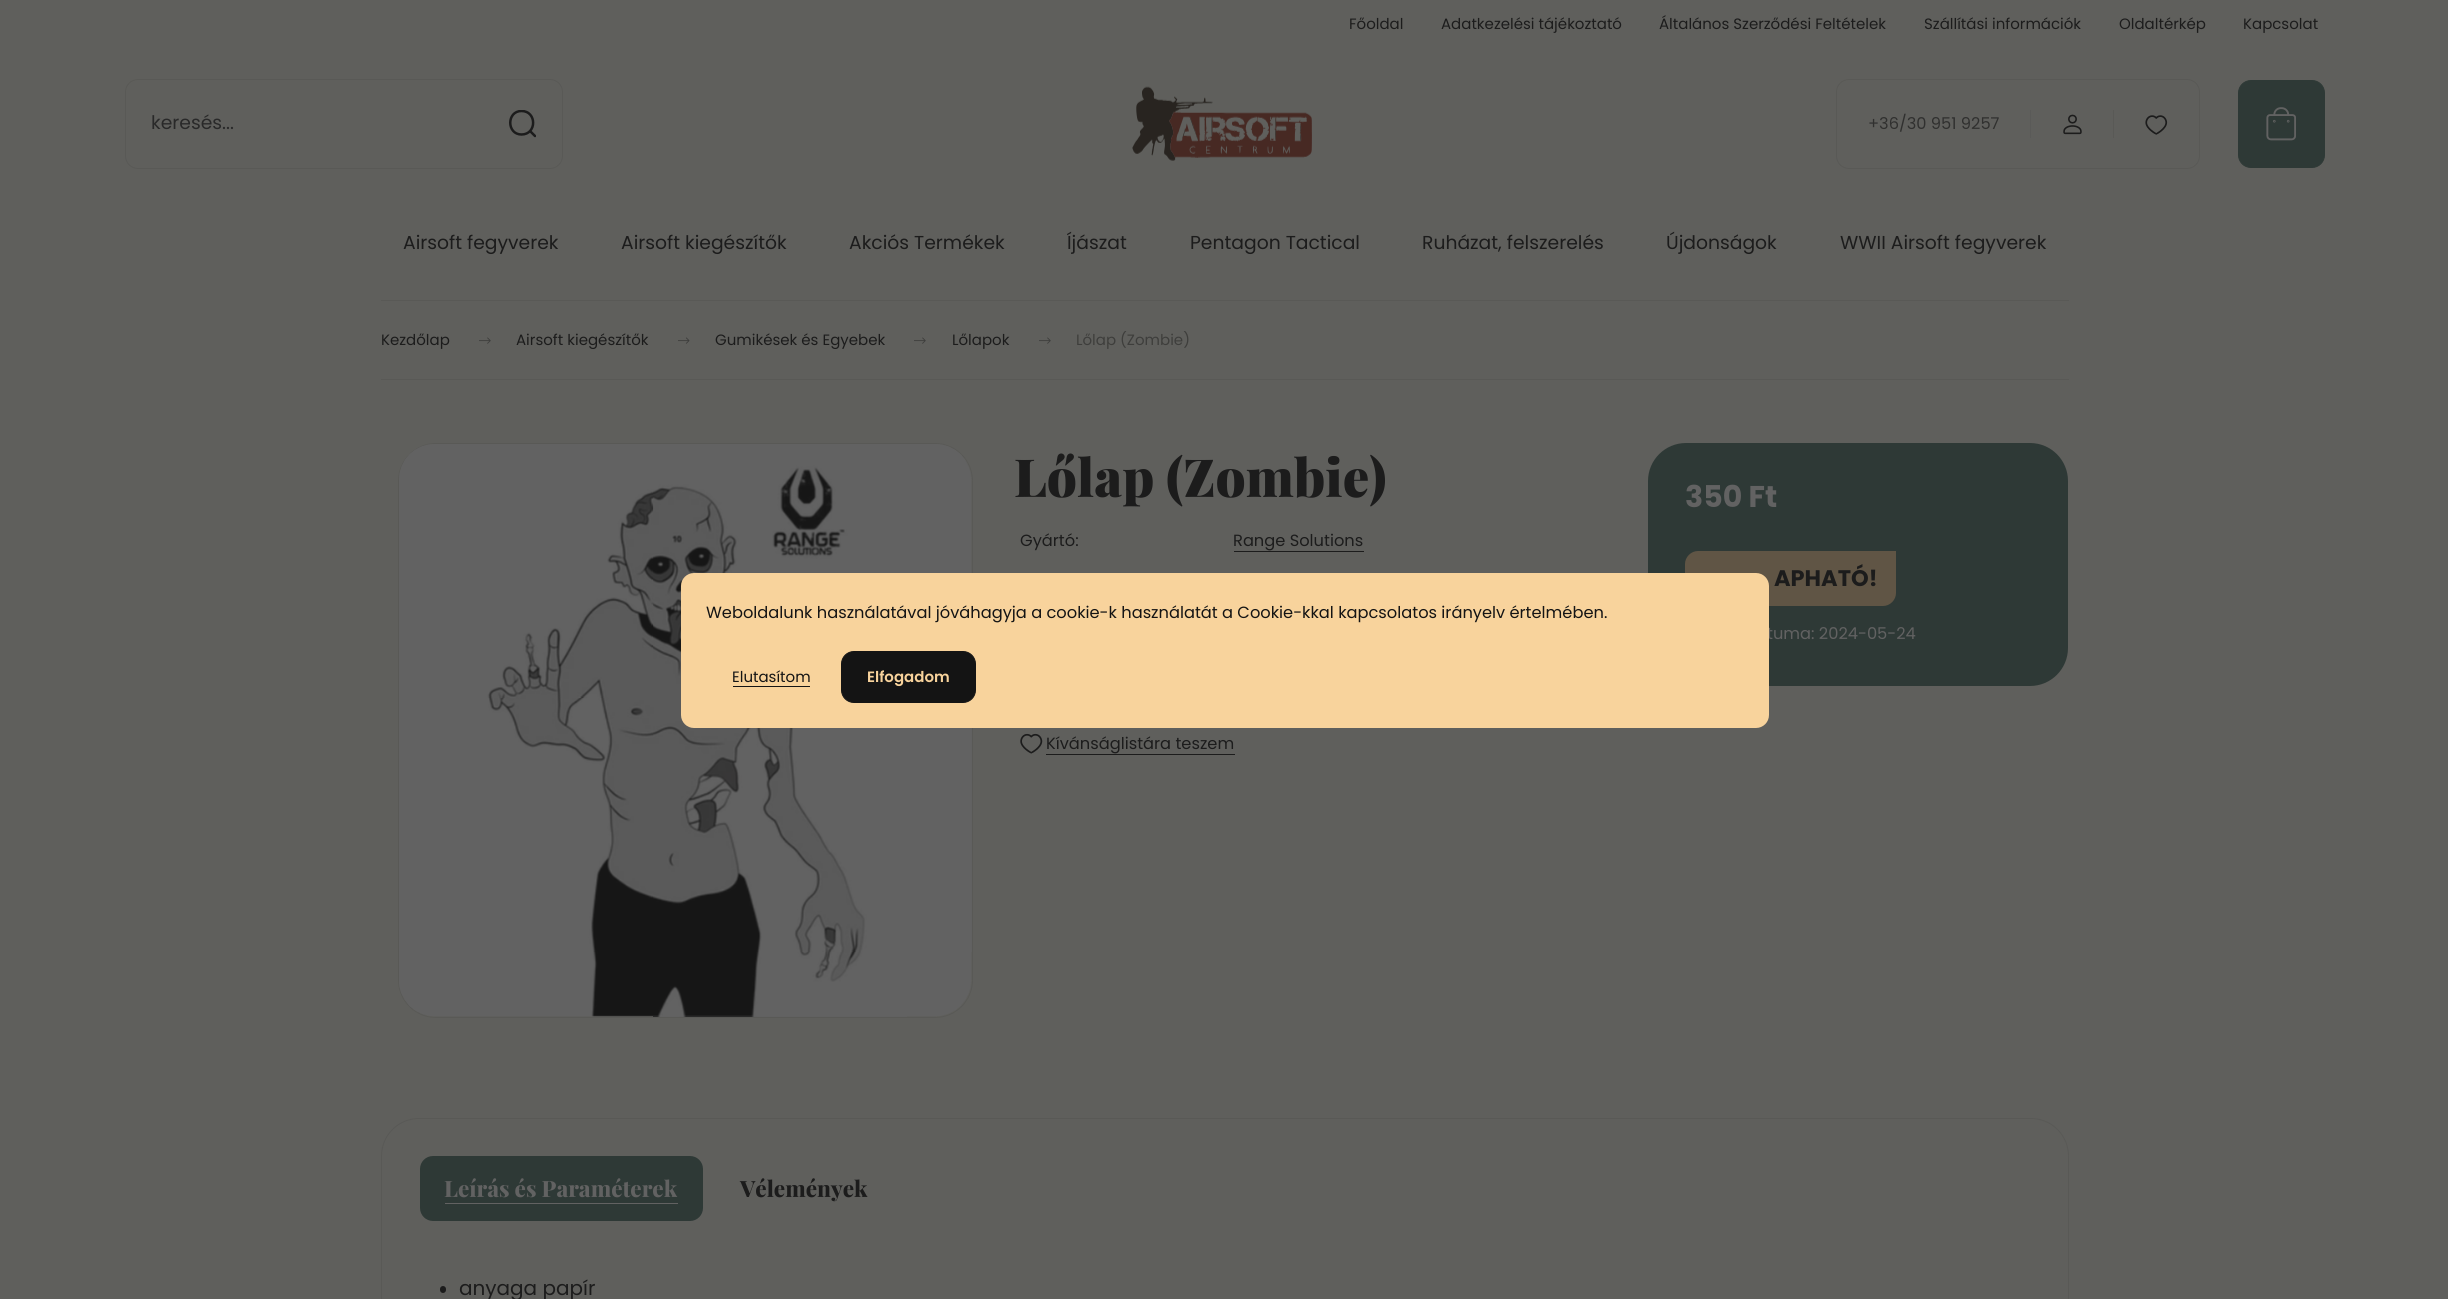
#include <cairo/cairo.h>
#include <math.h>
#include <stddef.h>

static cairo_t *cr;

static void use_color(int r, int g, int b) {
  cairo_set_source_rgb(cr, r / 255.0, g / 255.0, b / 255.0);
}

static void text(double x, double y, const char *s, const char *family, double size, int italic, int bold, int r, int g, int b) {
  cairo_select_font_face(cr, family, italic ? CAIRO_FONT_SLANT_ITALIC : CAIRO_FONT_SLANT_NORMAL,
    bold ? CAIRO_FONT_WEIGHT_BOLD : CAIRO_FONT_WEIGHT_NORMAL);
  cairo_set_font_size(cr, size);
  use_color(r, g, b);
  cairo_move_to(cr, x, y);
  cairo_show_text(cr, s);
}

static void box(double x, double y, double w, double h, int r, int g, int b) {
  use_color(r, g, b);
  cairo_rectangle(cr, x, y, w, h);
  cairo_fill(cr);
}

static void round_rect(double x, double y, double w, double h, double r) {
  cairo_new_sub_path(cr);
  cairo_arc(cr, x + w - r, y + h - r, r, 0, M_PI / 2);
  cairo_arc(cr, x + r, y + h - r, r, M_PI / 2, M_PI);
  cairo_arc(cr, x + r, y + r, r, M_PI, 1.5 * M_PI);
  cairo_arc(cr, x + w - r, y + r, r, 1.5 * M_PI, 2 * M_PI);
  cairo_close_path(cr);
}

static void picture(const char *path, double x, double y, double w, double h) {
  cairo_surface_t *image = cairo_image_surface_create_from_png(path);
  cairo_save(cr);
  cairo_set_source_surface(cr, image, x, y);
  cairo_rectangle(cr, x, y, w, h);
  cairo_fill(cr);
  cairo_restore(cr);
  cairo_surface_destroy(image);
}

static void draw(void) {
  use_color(95, 95, 92);
  cairo_paint(cr);
  round_rect(125.5, 79.5, 437, 89, 12.5);
  use_color(89, 89, 86);
  cairo_set_line_width(cr, 1);
  cairo_stroke(cr);
  cairo_save(cr);
  cairo_rectangle(cr, 509, 110, 27, 28);
  cairo_clip(cr);
  cairo_new_path(cr);
  cairo_move_to(cr, 535, 136);
  cairo_line_to(cr, 530, 131);
  cairo_move_to(cr, 521.5, 134.5);
  cairo_curve_to(cr, 506.5, 134.5, 506.5, 111, 521.5, 111);
  cairo_curve_to(cr, 537, 111, 537, 134.5, 521.5, 134.5);
  cairo_close_path(cr);
  use_color(28, 28, 28);
  cairo_set_line_width(cr, 2.5);
  cairo_set_line_cap(cr, CAIRO_LINE_CAP_ROUND);
  cairo_set_line_join(cr, CAIRO_LINE_JOIN_ROUND);
  cairo_stroke(cr);
  cairo_restore(cr);
  picture("img_01.png", 1132, 86, 180, 75);
  round_rect(1836.5, 79.5, 363, 89, 12.5);
  cairo_stroke(cr);
  box(2030, 110, 1, 28, 90, 90, 88);
  picture("img_02.png", 2063, 114, 19, 21);
  box(2113, 110, 1, 28, 89, 89, 86);
  picture("img_03.png", 2145, 115, 23, 20);
  use_color(46, 57, 54);
  round_rect(2238.5, 80.5, 86, 87, 12.5);
  cairo_fill_preserve(cr);
  cairo_stroke(cr);
  picture("img_04.png", 2266, 107, 30, 34);
  box(381, 300, 1688, 1, 89, 89, 86);
  box(381, 379, 1688, 1, 89, 89, 86);
  picture("img_05.png", 479, 337, 12, 7);
  picture("img_06.png", 678, 337, 12, 7);
  picture("img_05.png", 914, 337, 12, 7);
  picture("img_05.png", 1039, 337, 12, 7);
  round_rect(398.5, 443.5, 574, 574, 37.5);
  cairo_stroke(cr);
  picture("img_07.png", 399, 444, 573, 573);
  box(1234, 551, 130, 1, 28, 28, 28);
  picture("img_08.png", 1020, 733, 23, 21);
  box(1046, 754, 189, 1, 28, 28, 28);
  use_color(46, 57, 54);
  round_rect(1648, 443, 420, 243, 38);
  cairo_fill(cr);
  use_color(96, 85, 69);
  cairo_new_path(cr);
  cairo_move_to(cr, 1698, 551);
  cairo_line_to(cr, 1896, 551);
  cairo_line_to(cr, 1896, 593);
  cairo_curve_to(cr, 1896, 600, 1890, 606, 1883, 606);
  cairo_line_to(cr, 1685, 606);
  cairo_line_to(cr, 1685, 564);
  cairo_curve_to(cr, 1685, 557, 1691, 551, 1698, 551);
  cairo_close_path(cr);
  cairo_fill(cr);
  round_rect(381.5, 1118.5, 1687, 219, 37.5);
  use_color(89, 89, 86);
  cairo_stroke(cr);
  use_color(46, 57, 54);
  round_rect(420, 1156, 283, 65, 13);
  cairo_fill(cr);
  box(445, 1203, 233, 1, 98, 98, 98);
  use_color(28, 28, 28);
  round_rect(440, 1286, 6, 7, 3);
  cairo_fill(cr);
  text(1349, 29, "Főoldal", "Poppins", 15, 0, 0, 28, 28, 28);
  text(1441, 29, "Adatkezelési tájékoztató", "Poppins", 15, 0, 0, 28, 28, 28);
  text(1659, 29, "Általános Szerződési Feltételek", "Poppins", 15, 0, 0, 28, 28, 28);
  text(1924, 29, "Szállítási információk", "Poppins", 15, 0, 0, 28, 28, 28);
  text(2119, 29, "Oldaltérkép", "Poppins", 15, 0, 0, 28, 28, 28);
  text(2243, 29, "Kapcsolat", "Poppins", 15, 0, 0, 28, 28, 28);
  text(151, 129, "keresés...", "Poppins", 18.75, 0, 0, 41, 41, 41);
  text(1868, 129, "+36/30 951 9257", "Poppins", 16.25, 0, 0, 48, 48, 47);
  text(403, 249, "Airsoft fegyverek", "Poppins", 18.75, 0, 0, 28, 28, 28);
  text(621, 249, "Airsoft kiegészítők", "Poppins", 18.75, 0, 0, 28, 28, 28);
  text(849, 249, "Akciós Termékek", "Poppins", 18.75, 0, 0, 28, 28, 28);
  text(1067, 249, "Íjászat", "Poppins", 18.75, 0, 0, 28, 28, 28);
  text(1190, 249, "Pentagon Tactical", "Poppins", 18.75, 0, 0, 28, 28, 28);
  text(1422, 249, "Ruházat, felszerelés", "Poppins", 18.75, 0, 0, 28, 28, 28);
  text(1666, 249, "Újdonságok", "Poppins", 18.75, 0, 0, 28, 28, 28);
  text(1840, 249, "WWII Airsoft fegyverek", "Poppins", 18.75, 0, 0, 28, 28, 28);
  text(381, 345, "Kezdőlap", "Poppins", 15, 0, 0, 28, 28, 28);
  text(516, 345, "Airsoft kiegészítők", "Poppins", 15, 0, 0, 28, 28, 28);
  text(715, 345, "Gumikések és Egyebek", "Poppins", 15, 0, 0, 28, 28, 28);
  text(952, 345, "Lőlapok", "Poppins", 15, 0, 0, 28, 28, 28);
  text(1076, 345, "Lőlap (Zombie)", "Poppins", 15, 0, 0, 62, 62, 60);
  text(1014, 497, "Lőlap (Zombie)", "Playfair Display Black", 52.5, 0, 0, 28, 28, 28);
  text(1020, 546, "Gyártó:", "Poppins", 16.25, 0, 0, 28, 28, 28);
  text(1233, 546, "Range Solutions", "Poppins", 16.25, 0, 0, 28, 28, 28);
  text(1046, 749, "Kívánságlistára teszem", "Poppins", 16.25, 0, 0, 28, 28, 28);
  text(1685, 507, "350 Ft", "Poppins", 30, 0, 1, 98, 98, 98);
  text(1774, 586, "APHATÓ!", "Poppins", 22.5, 0, 1, 28, 28, 28);
  text(1767, 639, "tuma: 2024-05-24", "Poppins", 16.25, 0, 0, 98, 98, 98);
  text(444, 1197, "Leírás és Paraméterek", "Playfair Display ExtraBold", 22.5, 0, 0, 98, 98, 98);
  text(740, 1197, "Vélemények", "Playfair Display ExtraBold", 22.5, 0, 0, 28, 28, 28);
  text(459, 1295, "anyaga papír", "Poppins", 20, 0, 0, 28, 28, 28);
  use_color(248, 211, 156);
  round_rect(681, 573, 1088, 155, 13);
  cairo_fill(cr);
  text(706, 618, "Weboldalunk használatával jóváhagyja a cookie-k használatát a Cookie-kkal kapcsolatos irányelv értelmében.", "Poppins", 16.25, 0, 0, 20, 20, 20);
  text(732, 682, "Elutasítom", "Poppins", 15, 0, 0, 20, 20, 20);
  box(733, 686, 77, 1, 20, 20, 20);
  round_rect(841.5, 651.5, 134, 51, 12.5);
  cairo_fill_preserve(cr);
  cairo_stroke(cr);
  text(867, 682, "Elfogadom", "Poppins SemiBold", 15, 0, 0, 248, 211, 156);
}

int main(void) {
  cairo_surface_t *surface = cairo_image_surface_create(CAIRO_FORMAT_RGB24, 2448, 1299);
  cr = cairo_create(surface);
  cairo_font_options_t *options = cairo_font_options_create();
  cairo_font_options_set_hint_metrics(options, CAIRO_HINT_METRICS_OFF);
  cairo_font_options_set_hint_style(options, CAIRO_HINT_STYLE_NONE);
  cairo_set_font_options(cr, options);
  cairo_set_miter_limit(cr, 4);
  draw();
  cairo_surface_write_to_png(surface, "out.png");
  cairo_font_options_destroy(options);
  cairo_destroy(cr);
  cairo_surface_destroy(surface);
  return 0;
}
